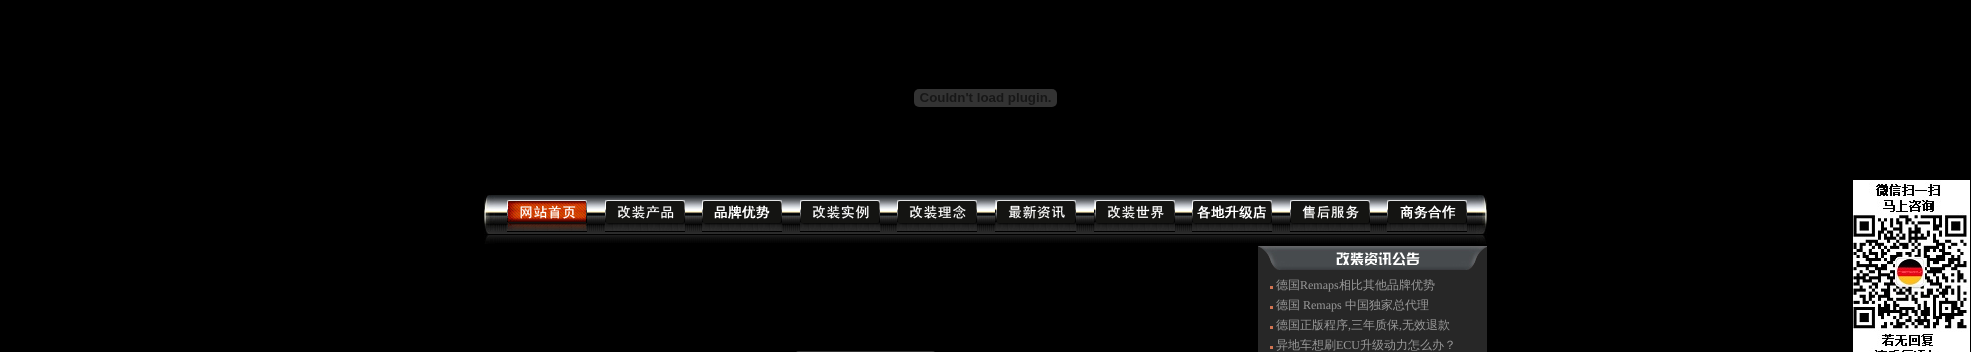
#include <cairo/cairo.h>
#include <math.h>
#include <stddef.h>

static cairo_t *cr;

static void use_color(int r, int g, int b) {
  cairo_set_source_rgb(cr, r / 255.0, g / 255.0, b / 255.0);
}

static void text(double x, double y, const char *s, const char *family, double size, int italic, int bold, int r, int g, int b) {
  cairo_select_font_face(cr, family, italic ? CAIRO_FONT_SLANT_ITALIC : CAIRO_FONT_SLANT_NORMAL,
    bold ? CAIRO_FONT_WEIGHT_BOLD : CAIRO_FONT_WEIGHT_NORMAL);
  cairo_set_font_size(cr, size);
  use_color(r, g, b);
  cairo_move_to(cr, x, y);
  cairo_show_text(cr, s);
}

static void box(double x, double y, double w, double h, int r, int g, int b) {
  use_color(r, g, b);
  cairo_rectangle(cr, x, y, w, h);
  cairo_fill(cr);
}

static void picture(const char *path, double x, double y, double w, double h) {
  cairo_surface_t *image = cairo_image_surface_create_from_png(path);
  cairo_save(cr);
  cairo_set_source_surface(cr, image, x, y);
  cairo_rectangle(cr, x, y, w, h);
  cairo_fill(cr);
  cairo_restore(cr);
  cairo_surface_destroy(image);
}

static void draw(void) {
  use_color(0, 0, 0);
  cairo_paint(cr);
  picture("img_01.png", 914, 89, 143, 18);
  picture("img_02.png", 495, 195, 981, 48);
  picture("img_03.png", 484, 195, 11, 49);
  picture("img_04.png", 507, 200, 80, 32);
  picture("img_05.png", 605, 200, 80, 32);
  picture("img_06.png", 702, 200, 80, 32);
  picture("img_07.png", 800, 200, 80, 32);
  picture("img_08.png", 897, 200, 80, 32);
  picture("img_09.png", 995, 200, 81, 32);
  picture("img_10.png", 1094, 200, 81, 32);
  picture("img_11.png", 1192, 200, 80, 32);
  picture("img_12.png", 1290, 200, 80, 32);
  picture("img_13.png", 1387, 200, 80, 32);
  picture("img_14.png", 1476, 195, 11, 49);
  picture("img_15.png", 1853, 180, 117, 172);
  picture("img_16.png", 1258, 246, 229, 26);
  box(1258, 272, 229, 80, 39, 39, 39);
  box(1270, 286, 3, 3, 207, 117, 83);
  box(1270, 306, 3, 3, 207, 117, 83);
  box(1270, 326, 3, 3, 207, 117, 83);
  box(1270, 346, 3, 3, 207, 117, 83);
  picture("img_17.png", 796, 351, 139, 1);
  text(1276, 289, "德国", "WenQuanYi Zen Hei Medium", 12, 0, 0, 153, 153, 153);
  text(1300, 289, "Remaps", "Liberation Serif", 12, 0, 0, 153, 153, 153);
  text(1339, 289, "相比其他品牌优势", "WenQuanYi Zen Hei Medium", 12, 0, 0, 153, 153, 153);
  text(1276, 309, "德国", "WenQuanYi Zen Hei Medium", 12, 0, 0, 153, 153, 153);
  text(1303, 309, "Remaps", "Liberation Serif", 12, 0, 0, 153, 153, 153);
  text(1345, 309, "中国独家总代理", "WenQuanYi Zen Hei Medium", 12, 0, 0, 153, 153, 153);
  text(1276, 329, "德国正版程序", "WenQuanYi Zen Hei Medium", 12, 0, 0, 153, 153, 153);
  text(1348, 329, ",", "Liberation Serif", 12, 0, 0, 153, 153, 153);
  text(1351, 329, "三年质保", "WenQuanYi Zen Hei Medium", 12, 0, 0, 153, 153, 153);
  text(1399, 329, ",", "Liberation Serif", 12, 0, 0, 153, 153, 153);
  text(1402, 329, "无效退款", "WenQuanYi Zen Hei Medium", 12, 0, 0, 153, 153, 153);
  text(1276, 349, "异地车想刷", "WenQuanYi Zen Hei Medium", 12, 0, 0, 153, 153, 153);
  text(1336, 349, "ECU", "Liberation Serif", 12, 0, 0, 153, 153, 153);
  text(1360, 349, "升级动力怎么办？", "WenQuanYi Zen Hei Medium", 12, 0, 0, 153, 153, 153);
}

int main(void) {
  cairo_surface_t *surface = cairo_image_surface_create(CAIRO_FORMAT_RGB24, 1971, 352);
  cr = cairo_create(surface);
  cairo_font_options_t *options = cairo_font_options_create();
  cairo_font_options_set_hint_metrics(options, CAIRO_HINT_METRICS_OFF);
  cairo_font_options_set_hint_style(options, CAIRO_HINT_STYLE_NONE);
  cairo_set_font_options(cr, options);
  cairo_set_miter_limit(cr, 4);
  draw();
  cairo_surface_write_to_png(surface, "out.png");
  cairo_font_options_destroy(options);
  cairo_destroy(cr);
  cairo_surface_destroy(surface);
  return 0;
}
